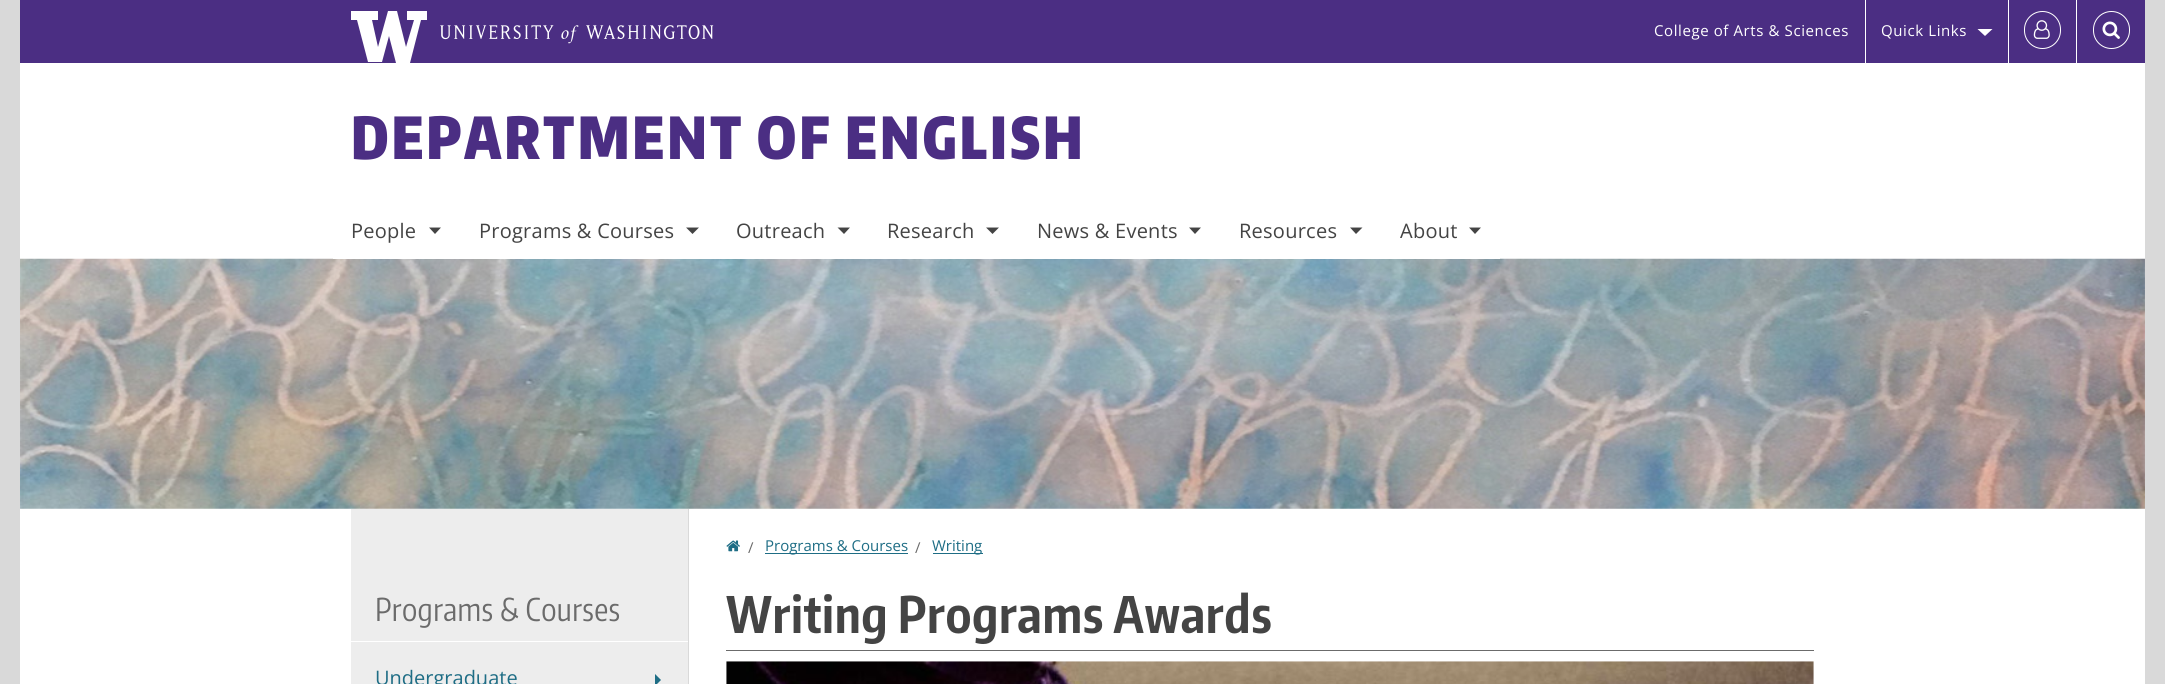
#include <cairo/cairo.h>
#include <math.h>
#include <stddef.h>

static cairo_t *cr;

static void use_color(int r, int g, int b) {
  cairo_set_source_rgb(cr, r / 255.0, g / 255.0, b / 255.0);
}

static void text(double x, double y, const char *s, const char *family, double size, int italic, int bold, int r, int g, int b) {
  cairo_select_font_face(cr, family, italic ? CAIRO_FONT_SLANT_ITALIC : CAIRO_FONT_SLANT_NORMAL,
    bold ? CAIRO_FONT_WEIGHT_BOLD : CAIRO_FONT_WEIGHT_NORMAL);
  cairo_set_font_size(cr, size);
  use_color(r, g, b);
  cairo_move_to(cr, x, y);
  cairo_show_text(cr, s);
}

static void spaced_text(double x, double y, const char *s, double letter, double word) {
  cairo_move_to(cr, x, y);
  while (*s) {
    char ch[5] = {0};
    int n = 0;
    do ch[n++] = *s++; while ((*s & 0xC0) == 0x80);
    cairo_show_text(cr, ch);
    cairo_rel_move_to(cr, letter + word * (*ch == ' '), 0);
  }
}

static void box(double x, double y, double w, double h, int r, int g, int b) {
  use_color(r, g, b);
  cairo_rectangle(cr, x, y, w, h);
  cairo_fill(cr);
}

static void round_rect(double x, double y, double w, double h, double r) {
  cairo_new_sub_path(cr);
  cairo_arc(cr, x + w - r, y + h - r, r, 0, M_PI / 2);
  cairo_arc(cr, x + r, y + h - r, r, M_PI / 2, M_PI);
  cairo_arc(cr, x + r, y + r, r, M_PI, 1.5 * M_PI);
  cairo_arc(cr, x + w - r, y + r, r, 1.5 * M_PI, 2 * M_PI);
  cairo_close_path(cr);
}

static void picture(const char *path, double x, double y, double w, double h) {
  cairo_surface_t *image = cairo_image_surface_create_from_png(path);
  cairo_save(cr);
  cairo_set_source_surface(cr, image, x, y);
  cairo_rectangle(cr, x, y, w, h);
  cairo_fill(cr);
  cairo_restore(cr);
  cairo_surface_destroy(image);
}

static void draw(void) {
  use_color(217, 217, 217);
  cairo_paint(cr);
  box(20, 63, 2125, 621, 255, 255, 255);
  box(20, 0, 2125, 63, 75, 46, 131);
  use_color(255, 255, 255);
  cairo_new_path(cr);
  cairo_move_to(cr, 407, 11);
  cairo_line_to(cr, 407, 20);
  cairo_line_to(cr, 414, 20);
  cairo_line_to(cr, 406, 47);
  cairo_line_to(cr, 397, 11);
  cairo_line_to(cr, 388, 11);
  cairo_line_to(cr, 378, 47);
  cairo_line_to(cr, 372, 20);
  cairo_line_to(cr, 378, 20);
  cairo_line_to(cr, 378, 11);
  cairo_line_to(cr, 351, 11);
  cairo_line_to(cr, 351, 20);
  cairo_line_to(cr, 357, 20);
  cairo_line_to(cr, 368, 62);
  cairo_line_to(cr, 382, 62);
  cairo_line_to(cr, 389, 36);
  cairo_line_to(cr, 396, 63);
  cairo_line_to(cr, 410, 63);
  cairo_line_to(cr, 421, 20);
  cairo_line_to(cr, 427, 20);
  cairo_line_to(cr, 427, 11);
  cairo_close_path(cr);
  cairo_fill(cr);
  picture("img_01.png", 440, 25, 274, 19);
  box(1865, 0, 1, 63, 255, 255, 255);
  cairo_new_path(cr);
  cairo_move_to(cr, 1977.5, 29);
  cairo_line_to(cr, 1992.5, 29);
  cairo_line_to(cr, 1985, 36);
  cairo_close_path(cr);
  cairo_fill(cr);
  box(2008, 0, 1, 63, 255, 255, 255);
  round_rect(2024.5, 11.5, 36, 37, 18);
  cairo_set_line_width(cr, 1);
  cairo_stroke(cr);
  picture("img_02.png", 2033, 20, 17, 19);
  box(2076, 0, 1, 63, 255, 255, 255);
  round_rect(2093.5, 11.5, 36, 37, 18);
  cairo_stroke(cr);
  picture("img_03.png", 2102, 21, 18, 18);
  picture("img_04.png", 20, 258, 2125, 251);
  box(333, 258, 1167, 1, 255, 255, 255);
  use_color(68, 68, 68);
  cairo_new_path(cr);
  cairo_move_to(cr, 429, 227.5);
  cairo_line_to(cr, 441, 227.5);
  cairo_line_to(cr, 435, 234);
  cairo_close_path(cr);
  cairo_fill(cr);
  cairo_new_path(cr);
  cairo_move_to(cr, 686, 227.5);
  cairo_line_to(cr, 699, 227.5);
  cairo_line_to(cr, 692.5, 234);
  cairo_close_path(cr);
  cairo_fill(cr);
  cairo_new_path(cr);
  cairo_move_to(cr, 837.5, 227.5);
  cairo_line_to(cr, 850, 227.5);
  cairo_line_to(cr, 844, 234);
  cairo_close_path(cr);
  cairo_fill(cr);
  cairo_new_path(cr);
  cairo_move_to(cr, 986, 227.5);
  cairo_line_to(cr, 999, 227.5);
  cairo_line_to(cr, 992.5, 234);
  cairo_close_path(cr);
  cairo_fill(cr);
  cairo_new_path(cr);
  cairo_move_to(cr, 1189, 227.5);
  cairo_line_to(cr, 1201, 227.5);
  cairo_line_to(cr, 1195, 234);
  cairo_close_path(cr);
  cairo_fill(cr);
  cairo_new_path(cr);
  cairo_move_to(cr, 1350, 227.5);
  cairo_line_to(cr, 1362.5, 227.5);
  cairo_line_to(cr, 1356, 234);
  cairo_close_path(cr);
  cairo_fill(cr);
  cairo_new_path(cr);
  cairo_move_to(cr, 1469, 227.5);
  cairo_line_to(cr, 1481, 227.5);
  cairo_line_to(cr, 1475, 234);
  cairo_close_path(cr);
  cairo_fill(cr);
  box(688, 509, 1, 175, 217, 217, 217);
  box(351, 509, 337, 175, 237, 237, 237);
  box(351, 641, 337, 1, 255, 255, 255);
  use_color(30, 109, 133);
  cairo_new_path(cr);
  cairo_move_to(cr, 655, 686);
  cairo_line_to(cr, 655, 674);
  cairo_line_to(cr, 661, 680);
  cairo_close_path(cr);
  cairo_fill(cr);
  picture("img_05.png", 726, 540, 14, 12);
  box(765, 553, 143, 1, 30, 109, 133);
  box(933, 553, 50, 1, 30, 109, 133);
  box(726, 650, 1088, 1, 107, 107, 107);
  picture("img_06.png", 726, 661, 1088, 23);
  cairo_select_font_face(cr, "Open Sans", CAIRO_FONT_SLANT_NORMAL, CAIRO_FONT_WEIGHT_NORMAL);
  cairo_set_font_size(cr, 15);
  use_color(255, 255, 255);
  spaced_text(1654, 36, "College of Arts & Sciences", 0.6, 0);
  spaced_text(1881, 36, "Quick Links", 0.6, 0);
  cairo_select_font_face(cr, "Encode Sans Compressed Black", CAIRO_FONT_SLANT_NORMAL, CAIRO_FONT_WEIGHT_NORMAL);
  cairo_set_font_size(cr, 57.5);
  use_color(75, 46, 131);
  spaced_text(351, 159, "DEPARTMENT OF ENGLISH", 2.9, 0);
  cairo_select_font_face(cr, "Open Sans", CAIRO_FONT_SLANT_NORMAL, CAIRO_FONT_WEIGHT_NORMAL);
  cairo_set_font_size(cr, 20);
  use_color(68, 68, 68);
  spaced_text(351, 238, "People", 0.25, 0);
  spaced_text(479, 238, "Programs & Courses", 0.25, 0);
  spaced_text(736, 238, "Outreach", 0.25, 0);
  spaced_text(887, 238, "Research", 0.25, 0);
  spaced_text(1037, 238, "News & Events", 0.25, 0);
  spaced_text(1239, 238, "Resources", 0.25, 0);
  spaced_text(1400, 238, "About", 0.25, 0);
  cairo_select_font_face(cr, "Encode Sans Compressed", CAIRO_FONT_SLANT_NORMAL, CAIRO_FONT_WEIGHT_NORMAL);
  cairo_set_font_size(cr, 31.25);
  use_color(107, 107, 107);
  spaced_text(375, 621, "Programs & Courses", 0.4, 0);
  text(375, 685, "Undergraduate", "Open Sans", 20, 0, 0, 30, 109, 133);
  text(748, 553, "/", "Open Sans", 15, 0, 0, 107, 107, 107);
  text(765, 551, "Programs & Courses", "Open Sans", 15, 0, 0, 30, 109, 133);
  text(915, 553, "/", "Open Sans", 15, 0, 0, 107, 107, 107);
  text(932, 551, "Writing", "Open Sans", 15, 0, 0, 30, 109, 133);
  cairo_select_font_face(cr, "Encode Sans Compressed", CAIRO_FONT_SLANT_NORMAL, CAIRO_FONT_WEIGHT_BOLD);
  cairo_set_font_size(cr, 50);
  use_color(68, 68, 68);
  spaced_text(726, 633, "Writing Programs Awards", 0.6, 0);
}

int main(void) {
  cairo_surface_t *surface = cairo_image_surface_create(CAIRO_FORMAT_RGB24, 2165, 684);
  cr = cairo_create(surface);
  cairo_font_options_t *options = cairo_font_options_create();
  cairo_font_options_set_hint_metrics(options, CAIRO_HINT_METRICS_OFF);
  cairo_font_options_set_hint_style(options, CAIRO_HINT_STYLE_NONE);
  cairo_set_font_options(cr, options);
  cairo_set_miter_limit(cr, 4);
  draw();
  cairo_surface_write_to_png(surface, "out.png");
  cairo_font_options_destroy(options);
  cairo_destroy(cr);
  cairo_surface_destroy(surface);
  return 0;
}
